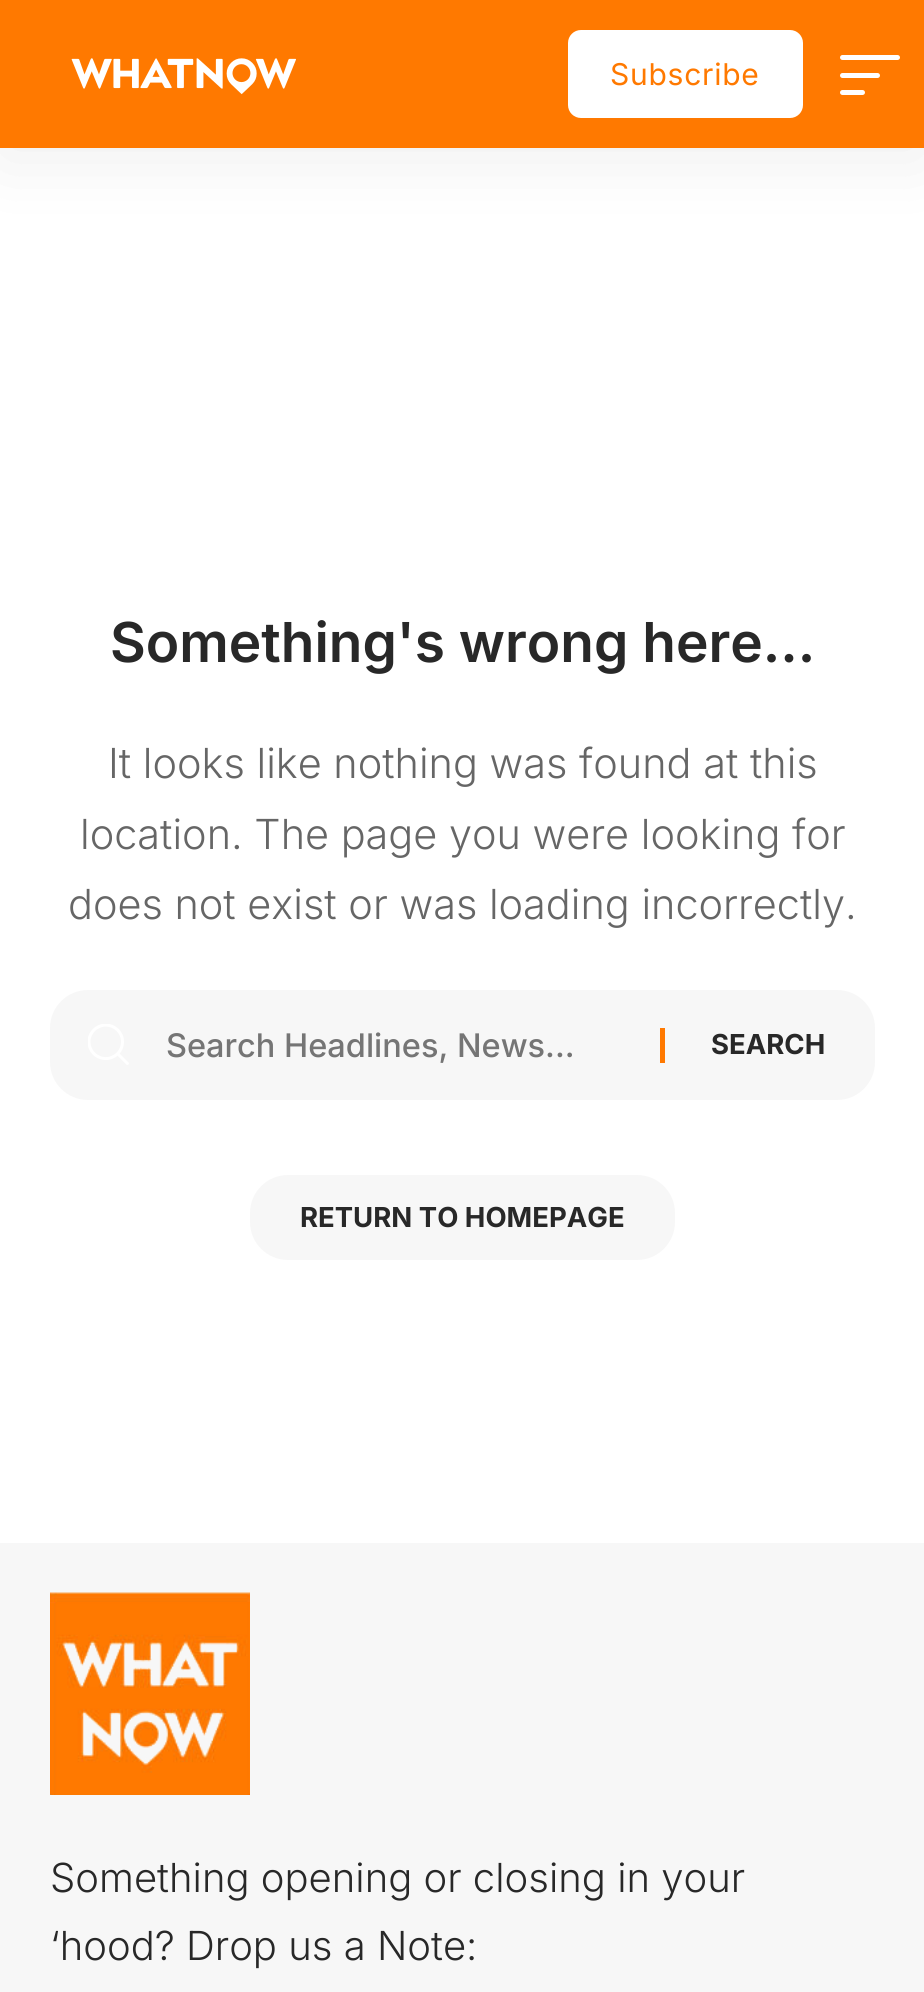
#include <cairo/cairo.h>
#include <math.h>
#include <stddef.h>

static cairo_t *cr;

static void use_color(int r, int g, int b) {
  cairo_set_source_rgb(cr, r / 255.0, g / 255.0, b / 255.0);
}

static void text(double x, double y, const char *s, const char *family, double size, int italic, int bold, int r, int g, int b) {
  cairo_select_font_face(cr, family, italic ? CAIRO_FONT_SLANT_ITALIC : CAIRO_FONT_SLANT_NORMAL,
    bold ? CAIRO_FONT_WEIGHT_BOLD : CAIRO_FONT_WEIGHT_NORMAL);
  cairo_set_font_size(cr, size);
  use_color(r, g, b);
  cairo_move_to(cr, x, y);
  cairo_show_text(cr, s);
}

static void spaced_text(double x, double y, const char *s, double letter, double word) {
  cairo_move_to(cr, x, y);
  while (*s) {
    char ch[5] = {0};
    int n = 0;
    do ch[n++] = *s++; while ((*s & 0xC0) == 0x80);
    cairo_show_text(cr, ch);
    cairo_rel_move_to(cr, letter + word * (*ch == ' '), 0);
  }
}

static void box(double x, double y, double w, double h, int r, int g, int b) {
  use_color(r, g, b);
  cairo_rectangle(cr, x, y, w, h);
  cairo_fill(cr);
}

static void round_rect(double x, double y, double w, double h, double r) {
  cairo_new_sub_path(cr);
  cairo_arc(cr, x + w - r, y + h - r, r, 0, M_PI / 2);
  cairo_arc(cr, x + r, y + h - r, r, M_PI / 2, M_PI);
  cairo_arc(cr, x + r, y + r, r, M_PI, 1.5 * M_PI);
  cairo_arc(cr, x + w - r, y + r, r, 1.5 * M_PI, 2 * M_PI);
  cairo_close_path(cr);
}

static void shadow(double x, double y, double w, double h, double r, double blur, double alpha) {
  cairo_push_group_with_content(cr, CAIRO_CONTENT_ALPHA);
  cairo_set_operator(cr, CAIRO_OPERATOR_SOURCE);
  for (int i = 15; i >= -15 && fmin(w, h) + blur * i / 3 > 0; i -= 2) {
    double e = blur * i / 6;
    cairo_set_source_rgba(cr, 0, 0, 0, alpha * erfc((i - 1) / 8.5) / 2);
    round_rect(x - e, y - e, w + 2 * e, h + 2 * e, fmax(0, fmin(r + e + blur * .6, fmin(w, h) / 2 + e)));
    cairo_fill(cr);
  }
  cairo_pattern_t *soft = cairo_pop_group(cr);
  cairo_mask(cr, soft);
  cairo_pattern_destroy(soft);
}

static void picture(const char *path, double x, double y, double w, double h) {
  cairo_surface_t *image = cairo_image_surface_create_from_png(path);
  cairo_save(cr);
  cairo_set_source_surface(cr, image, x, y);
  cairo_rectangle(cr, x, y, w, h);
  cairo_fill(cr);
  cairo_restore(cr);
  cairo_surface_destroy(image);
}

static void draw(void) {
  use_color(255, 255, 255);
  cairo_paint(cr);
  use_color(0, 0, 0);
  shadow(0, 10, 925, 148, 0, 37.5, 0.07);
  box(0, 0, 924, 148, 255, 121, 0);
  picture("img_01.png", 71, 58, 225, 37);
  use_color(255, 255, 255);
  round_rect(570.5, 32.5, 230, 83, 10.5);
  cairo_fill_preserve(cr);
  cairo_set_line_width(cr, 5);
  cairo_stroke(cr);
  round_rect(840, 55, 60, 5, 2.5);
  cairo_fill(cr);
  round_rect(840, 73, 40, 5, 2.5);
  cairo_fill(cr);
  round_rect(840, 90, 25, 5, 2.5);
  cairo_fill(cr);
  use_color(247, 247, 247);
  round_rect(50, 990, 825, 110, 38);
  cairo_fill(cr);
  picture("img_02.png", 88, 1024, 41, 41);
  box(660, 1028, 5, 35, 255, 121, 0);
  use_color(247, 247, 247);
  round_rect(250, 1175, 425, 85, 38);
  cairo_fill(cr);
  box(0, 1543, 924, 449, 247, 247, 247);
  picture("img_03.png", 50, 1592, 200, 203);
  cairo_select_font_face(cr, "Inter", CAIRO_FONT_SLANT_NORMAL, CAIRO_FONT_WEIGHT_NORMAL);
  cairo_set_font_size(cr, 30);
  use_color(255, 121, 0);
  spaced_text(610, 85, "Subscribe", 0.75, 0);
  text(110, 662, "Something's wrong here...", "Inter SemiBold", 55, 0, 0, 40, 40, 40);
  text(108, 778, "It looks like nothing was found at this", "Inter Light", 41.4, 0, 0, 102, 102, 102);
  text(80, 849, "location. The page you were looking for", "Inter Light", 41.4, 0, 0, 102, 102, 102);
  text(68, 919, "does not exist or was loading incorrectly.", "Inter Light", 41.4, 0, 0, 102, 102, 102);
  text(166, 1057, "Search Headlines, News...", "Inter Medium", 32.5, 0, 0, 117, 117, 117);
  text(711, 1054, "SEARCH", "Inter", 27.5, 0, 1, 40, 40, 40);
  text(300, 1227, "RETURN TO HOMEPAGE", "Inter", 27.5, 0, 1, 40, 40, 40);
  text(50, 1892, "Something opening or closing in your", "Inter Light", 40, 0, 0, 40, 40, 40);
  text(50, 1960, "‘hood? Drop us a Note:", "Inter Light", 40, 0, 0, 40, 40, 40);
}

int main(void) {
  cairo_surface_t *surface = cairo_image_surface_create(CAIRO_FORMAT_RGB24, 924, 1992);
  cr = cairo_create(surface);
  cairo_font_options_t *options = cairo_font_options_create();
  cairo_font_options_set_hint_metrics(options, CAIRO_HINT_METRICS_OFF);
  cairo_font_options_set_hint_style(options, CAIRO_HINT_STYLE_NONE);
  cairo_set_font_options(cr, options);
  cairo_set_miter_limit(cr, 4);
  draw();
  cairo_surface_write_to_png(surface, "out.png");
  cairo_font_options_destroy(options);
  cairo_destroy(cr);
  cairo_surface_destroy(surface);
  return 0;
}
